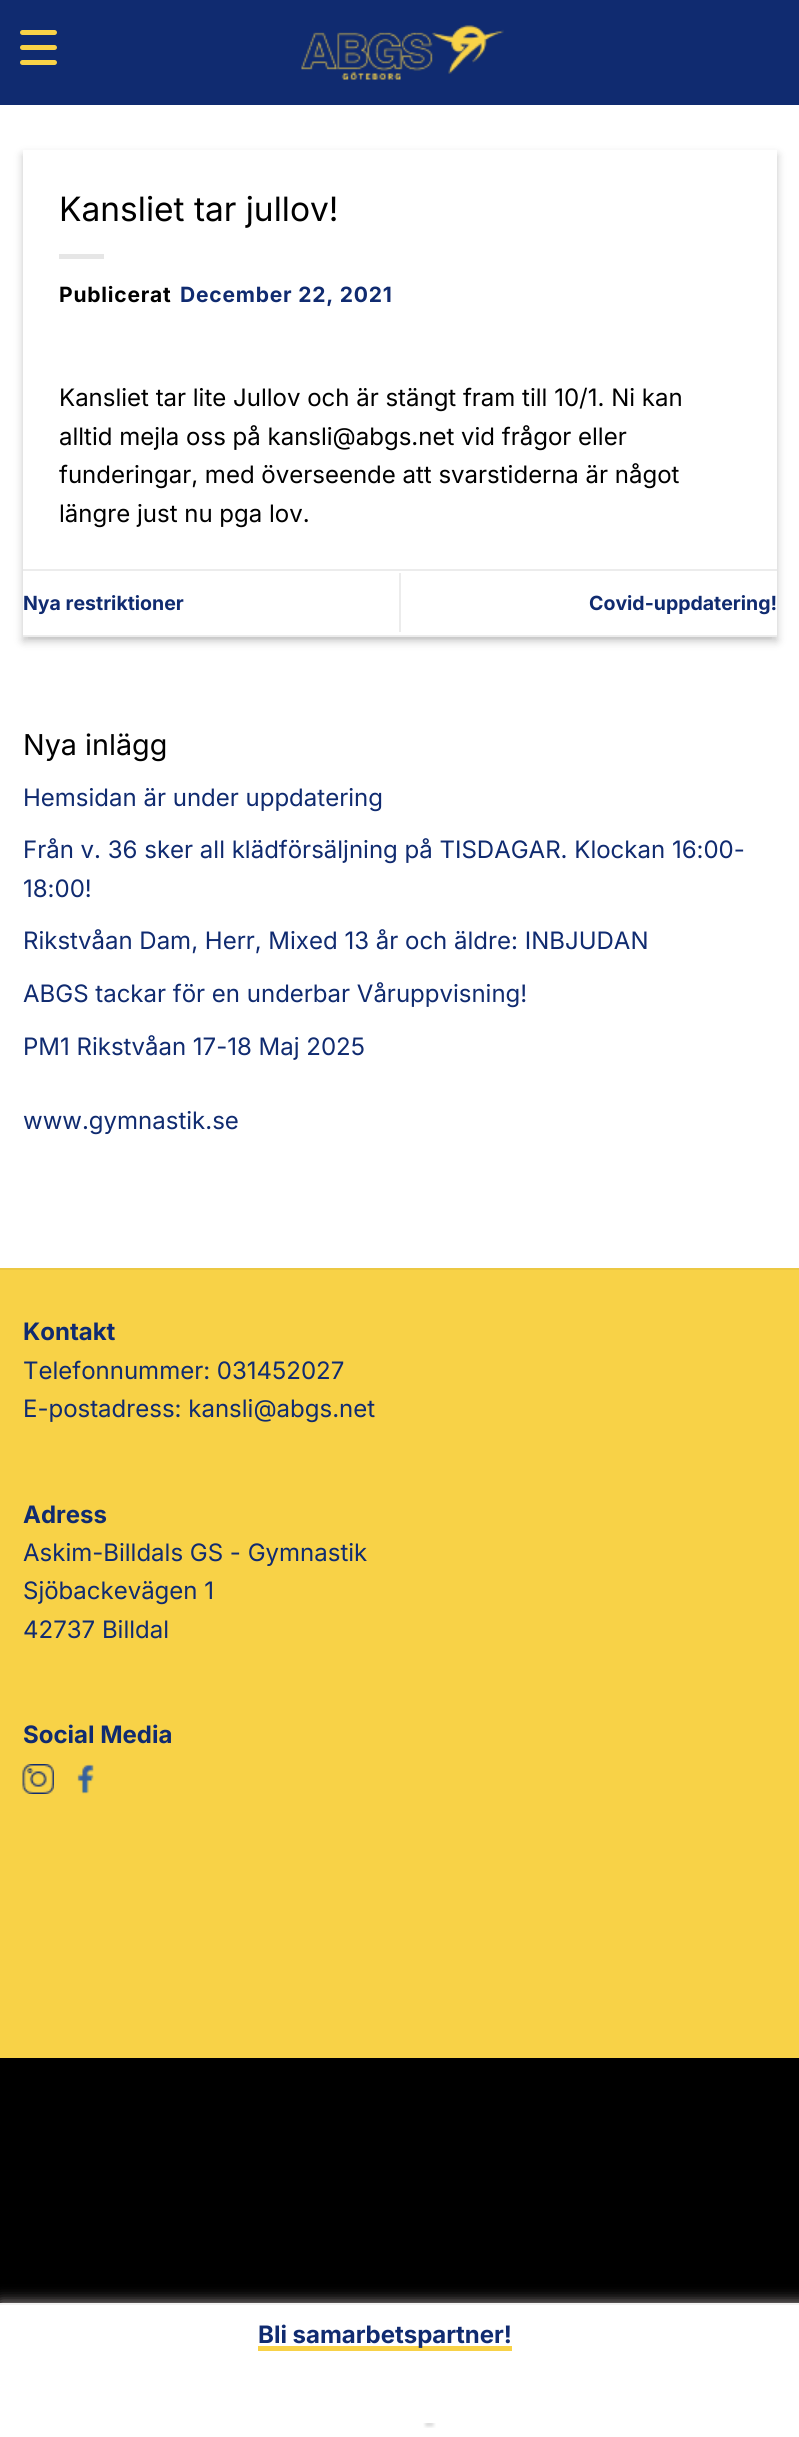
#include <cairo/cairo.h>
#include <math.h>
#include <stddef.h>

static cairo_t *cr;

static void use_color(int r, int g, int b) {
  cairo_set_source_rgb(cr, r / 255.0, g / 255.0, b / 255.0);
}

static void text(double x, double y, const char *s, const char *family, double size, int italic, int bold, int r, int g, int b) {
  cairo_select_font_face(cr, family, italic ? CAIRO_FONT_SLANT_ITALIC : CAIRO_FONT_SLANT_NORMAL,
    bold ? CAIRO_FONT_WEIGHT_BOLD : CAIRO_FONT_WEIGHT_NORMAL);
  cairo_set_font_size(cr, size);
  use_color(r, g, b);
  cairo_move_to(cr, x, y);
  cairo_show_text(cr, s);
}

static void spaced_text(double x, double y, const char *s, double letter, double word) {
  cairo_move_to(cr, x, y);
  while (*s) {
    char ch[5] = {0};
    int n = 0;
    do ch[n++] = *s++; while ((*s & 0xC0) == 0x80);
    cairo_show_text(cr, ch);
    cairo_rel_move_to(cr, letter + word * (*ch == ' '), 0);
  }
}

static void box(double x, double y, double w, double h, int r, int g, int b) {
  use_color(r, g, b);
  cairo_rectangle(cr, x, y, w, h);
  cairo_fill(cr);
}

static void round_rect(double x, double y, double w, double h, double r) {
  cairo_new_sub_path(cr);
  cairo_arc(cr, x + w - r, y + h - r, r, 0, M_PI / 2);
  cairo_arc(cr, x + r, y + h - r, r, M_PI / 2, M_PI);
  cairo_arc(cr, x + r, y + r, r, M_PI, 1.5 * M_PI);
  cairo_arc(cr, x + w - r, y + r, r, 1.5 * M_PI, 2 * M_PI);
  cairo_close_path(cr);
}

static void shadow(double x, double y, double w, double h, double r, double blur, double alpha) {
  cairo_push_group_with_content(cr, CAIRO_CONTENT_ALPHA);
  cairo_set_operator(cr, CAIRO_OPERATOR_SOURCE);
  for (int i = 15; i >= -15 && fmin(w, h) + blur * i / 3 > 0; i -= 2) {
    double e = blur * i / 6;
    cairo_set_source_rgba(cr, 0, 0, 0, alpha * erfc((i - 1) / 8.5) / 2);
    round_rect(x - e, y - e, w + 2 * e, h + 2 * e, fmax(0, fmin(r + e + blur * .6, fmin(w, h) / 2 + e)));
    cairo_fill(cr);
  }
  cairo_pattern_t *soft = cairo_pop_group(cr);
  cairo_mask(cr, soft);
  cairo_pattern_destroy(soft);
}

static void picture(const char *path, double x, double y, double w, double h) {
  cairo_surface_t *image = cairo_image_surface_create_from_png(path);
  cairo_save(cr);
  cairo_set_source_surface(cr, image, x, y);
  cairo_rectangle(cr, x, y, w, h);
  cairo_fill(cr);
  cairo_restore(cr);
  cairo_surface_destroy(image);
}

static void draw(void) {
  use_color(0, 0, 0);
  cairo_paint(cr);
  box(0, 0, 799, 105, 16, 43, 112);
  use_color(248, 210, 71);
  round_rect(20, 45, 37, 5, 2.5);
  cairo_fill(cr);
  round_rect(20, 30, 37, 5, 2.5);
  cairo_fill(cr);
  round_rect(20, 60, 37, 5, 2.5);
  cairo_fill(cr);
  box(0, 105, 799, 1163, 255, 255, 255);
  picture("img_01.png", 301, 25, 203, 55);
  cairo_save(cr);
  cairo_set_fill_rule(cr, CAIRO_FILL_RULE_EVEN_ODD);
  cairo_new_path(cr);
  cairo_move_to(cr, 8, 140);
  cairo_line_to(cr, 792, 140);
  cairo_line_to(cr, 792, 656);
  cairo_line_to(cr, 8, 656);
  cairo_close_path(cr);
  cairo_move_to(cr, 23, 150);
  cairo_line_to(cr, 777, 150);
  cairo_line_to(cr, 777, 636);
  cairo_line_to(cr, 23, 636);
  cairo_close_path(cr);
  cairo_clip(cr);
  use_color(0, 0, 0);
  shadow(23, 155, 754, 486, 0, 4.5, 0.23);
  cairo_restore(cr);
  cairo_save(cr);
  cairo_rectangle(cr, 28, 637, 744, 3);
  cairo_clip(cr);
  use_color(0, 0, 0);
  shadow(29, 161, 742, 474, 0, 4.5, 0.16);
  cairo_restore(cr);
  box(59, 254, 45, 5, 230, 230, 230);
  box(23, 569, 754, 2, 236, 236, 236);
  box(23, 635, 754, 2, 236, 236, 236);
  box(399, 573, 2, 59, 236, 236, 236);
  box(0, 1270, 799, 788, 248, 210, 71);
  box(0, 1268, 799, 2, 236, 200, 67);
  picture("img_02.png", 22, 1764, 32, 30);
  picture("img_03.png", 77, 1764, 17, 30);
  use_color(169, 161, 161);
  shadow(0, 2303, 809, 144, 0, 7.5, 1);
  box(0, 2305, 799, 132, 255, 255, 255);
  box(0, 2303, 799, 2, 242, 242, 242);
  box(258, 2346, 254, 5, 248, 210, 71);
  picture("img_04.png", 423, 2423, 13, 5);
  text(59, 221, "Kansliet tar jullov!", "Inter", 33.5, 0, 0, 0, 0, 0);
  cairo_select_font_face(cr, "Inter", CAIRO_FONT_SLANT_NORMAL, CAIRO_FONT_WEIGHT_BOLD);
  cairo_set_font_size(cr, 21);
  spaced_text(59, 302, "Publicerat", 0.8, 0);
  use_color(16, 43, 112);
  spaced_text(180, 302, "December 22, 2021", 0.8, 0);
  text(59, 406, "Kansliet tar lite Jullov och är stängt fram till 10/1. Ni kan", "Inter", 24, 0, 0, 0, 0, 0);
  text(59, 445, "alltid mejla oss på kansli@abgs.net vid frågor eller", "Inter", 24, 0, 0, 0, 0, 0);
  text(59, 483, "funderingar, med överseende att svarstiderna är något", "Inter", 24, 0, 0, 0, 0, 0);
  text(59, 522, "längre just nu pga lov.", "Inter", 24, 0, 0, 0, 0, 0);
  text(23, 610, "Nya restriktioner", "Inter", 19.5, 0, 1, 16, 43, 112);
  text(589, 610, "Covid-uppdatering!", "Inter", 19.5, 0, 1, 16, 43, 112);
  text(23, 755, "Nya inlägg", "Inter", 28.75, 0, 0, 0, 0, 0);
  text(23, 806, "Hemsidan är under uppdatering", "Inter", 24, 0, 0, 16, 43, 112);
  text(23, 858, "Från v. 36 sker all klädförsäljning på TISDAGAR. Klockan 16:00-", "Inter", 24, 0, 0, 16, 43, 112);
  text(23, 897, "18:00!", "Inter", 24, 0, 0, 16, 43, 112);
  text(23, 949, "Rikstvåan Dam, Herr, Mixed 13 år och äldre: INBJUDAN", "Inter", 24, 0, 0, 16, 43, 112);
  text(23, 1002, "ABGS tackar för en underbar Våruppvisning!", "Inter", 24, 0, 0, 16, 43, 112);
  text(23, 1055, "PM1 Rikstvåan 17-18 Maj 2025", "Inter", 24, 0, 0, 16, 43, 112);
  text(23, 1129, "www.gymnastik.se", "Inter", 24, 0, 0, 16, 43, 112);
  text(23, 1340, "Kontakt", "Inter", 24, 0, 1, 16, 43, 112);
  text(23, 1379, "Telefonnummer: 031452027", "Inter", 24, 0, 0, 16, 43, 112);
  text(23, 1417, "E-postadress: kansli@abgs.net", "Inter", 24, 0, 0, 16, 43, 112);
  text(23, 1523, "Adress", "Inter", 24, 0, 1, 16, 43, 112);
  text(23, 1561, "Askim-Billdals GS - Gymnastik", "Inter", 24, 0, 0, 16, 43, 112);
  text(23, 1599, "Sjöbackevägen 1", "Inter", 24, 0, 0, 16, 43, 112);
  text(23, 1638, "42737 Billdal", "Inter", 24, 0, 0, 16, 43, 112);
  text(23, 1743, "Social Media", "Inter", 24, 0, 1, 16, 43, 112);
  text(258, 2343, "Bli samarbetspartner!", "Inter", 24, 0, 1, 16, 43, 112);
}

int main(void) {
  cairo_surface_t *surface = cairo_image_surface_create(CAIRO_FORMAT_RGB24, 799, 2437);
  cr = cairo_create(surface);
  cairo_font_options_t *options = cairo_font_options_create();
  cairo_font_options_set_hint_metrics(options, CAIRO_HINT_METRICS_OFF);
  cairo_font_options_set_hint_style(options, CAIRO_HINT_STYLE_NONE);
  cairo_set_font_options(cr, options);
  cairo_set_miter_limit(cr, 4);
  draw();
  cairo_surface_write_to_png(surface, "out.png");
  cairo_font_options_destroy(options);
  cairo_destroy(cr);
  cairo_surface_destroy(surface);
  return 0;
}
